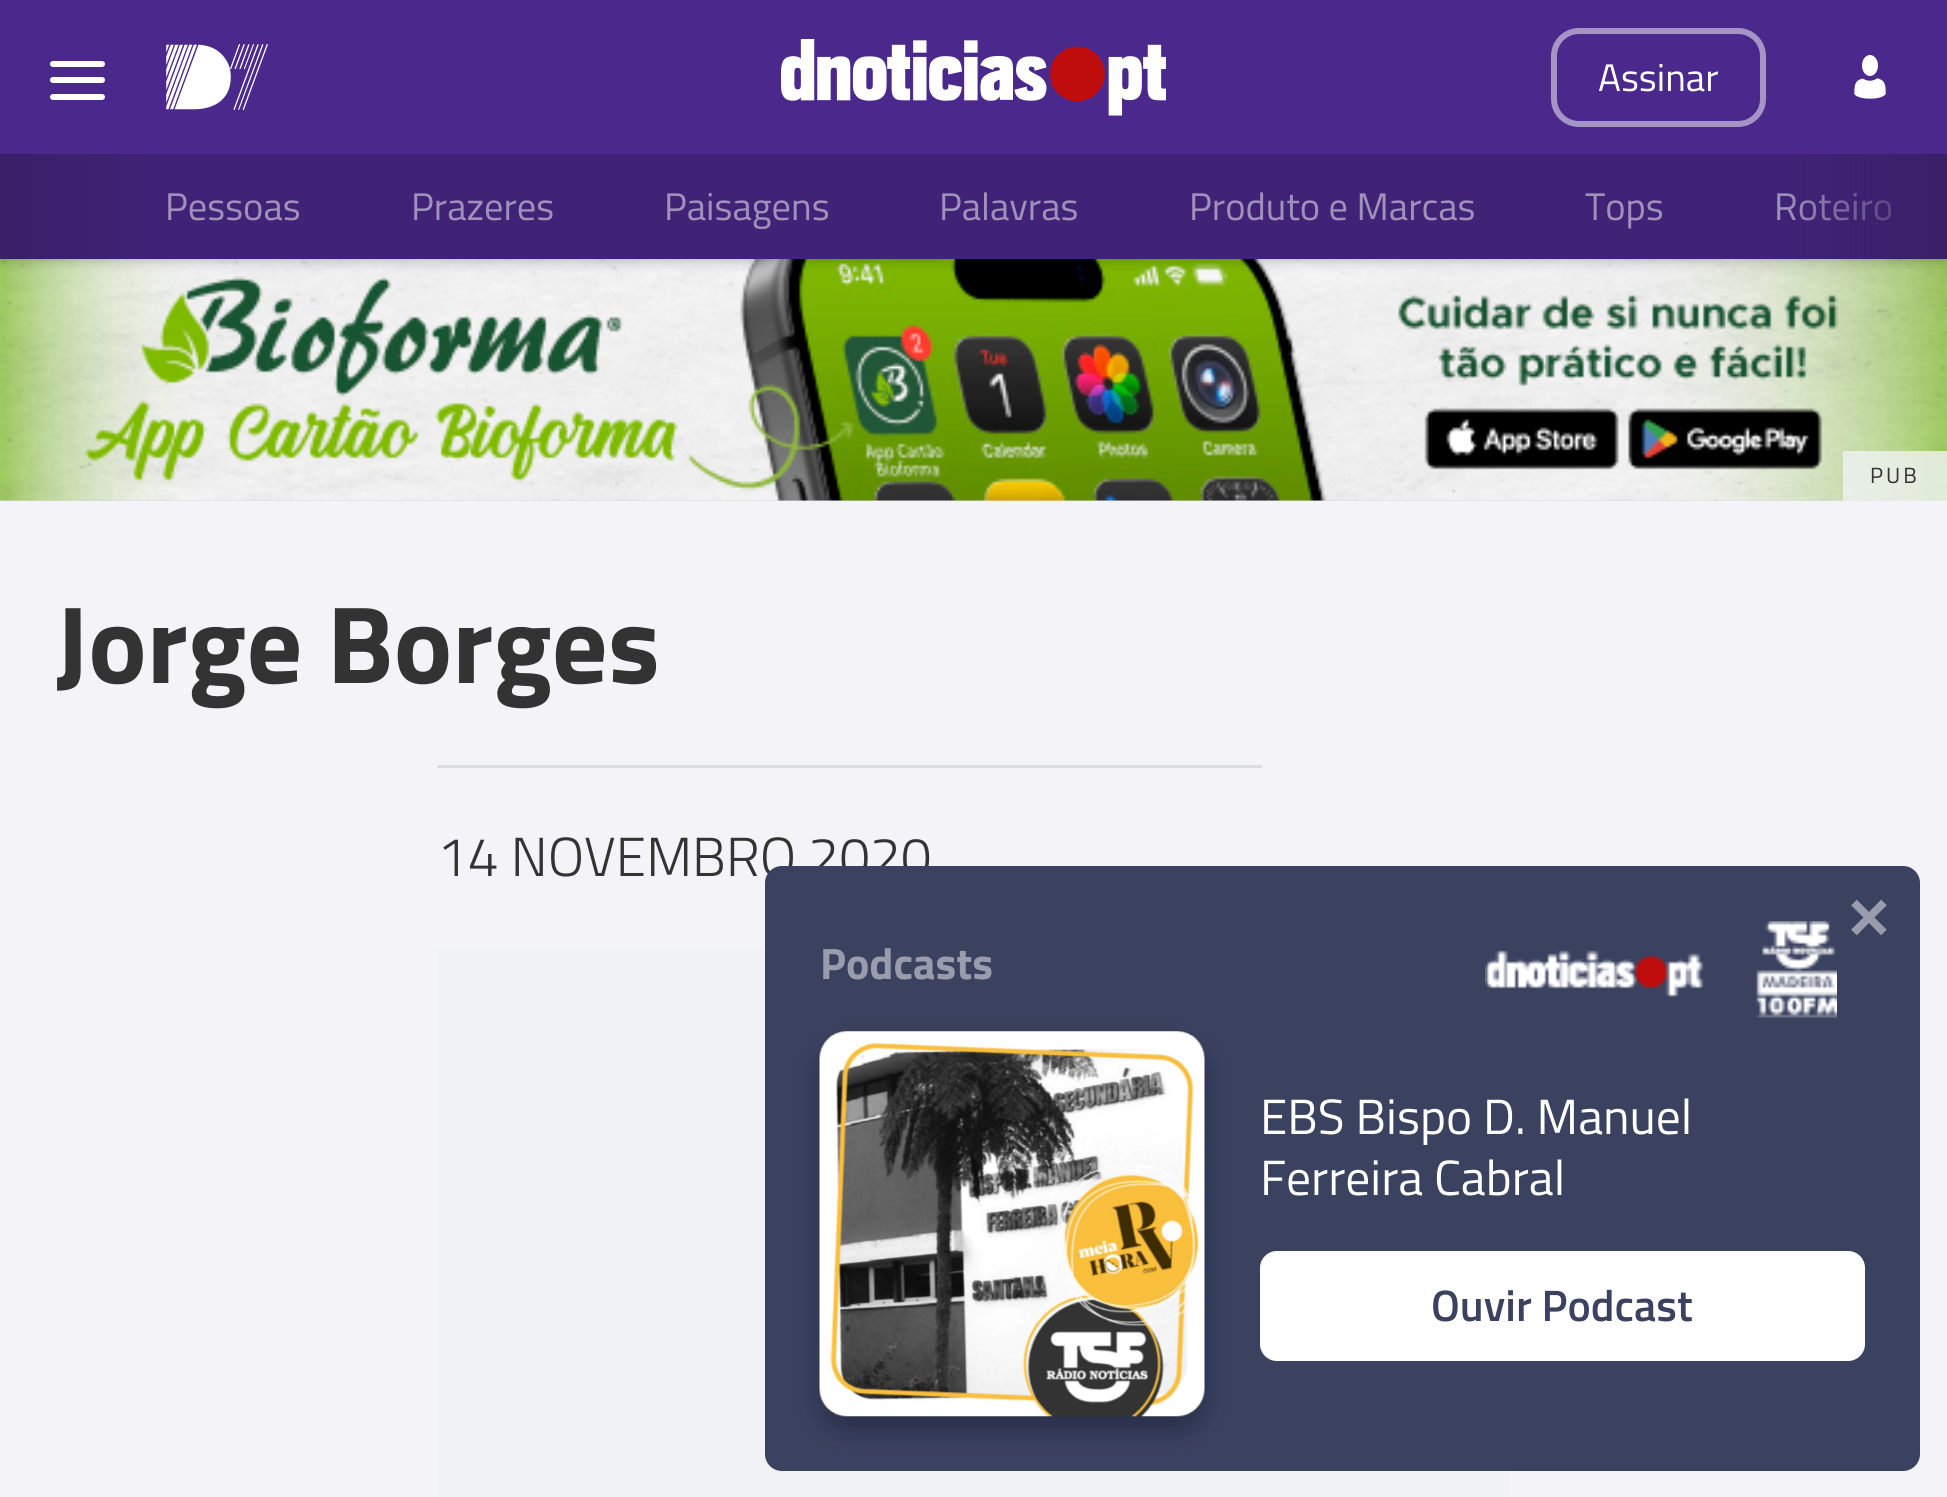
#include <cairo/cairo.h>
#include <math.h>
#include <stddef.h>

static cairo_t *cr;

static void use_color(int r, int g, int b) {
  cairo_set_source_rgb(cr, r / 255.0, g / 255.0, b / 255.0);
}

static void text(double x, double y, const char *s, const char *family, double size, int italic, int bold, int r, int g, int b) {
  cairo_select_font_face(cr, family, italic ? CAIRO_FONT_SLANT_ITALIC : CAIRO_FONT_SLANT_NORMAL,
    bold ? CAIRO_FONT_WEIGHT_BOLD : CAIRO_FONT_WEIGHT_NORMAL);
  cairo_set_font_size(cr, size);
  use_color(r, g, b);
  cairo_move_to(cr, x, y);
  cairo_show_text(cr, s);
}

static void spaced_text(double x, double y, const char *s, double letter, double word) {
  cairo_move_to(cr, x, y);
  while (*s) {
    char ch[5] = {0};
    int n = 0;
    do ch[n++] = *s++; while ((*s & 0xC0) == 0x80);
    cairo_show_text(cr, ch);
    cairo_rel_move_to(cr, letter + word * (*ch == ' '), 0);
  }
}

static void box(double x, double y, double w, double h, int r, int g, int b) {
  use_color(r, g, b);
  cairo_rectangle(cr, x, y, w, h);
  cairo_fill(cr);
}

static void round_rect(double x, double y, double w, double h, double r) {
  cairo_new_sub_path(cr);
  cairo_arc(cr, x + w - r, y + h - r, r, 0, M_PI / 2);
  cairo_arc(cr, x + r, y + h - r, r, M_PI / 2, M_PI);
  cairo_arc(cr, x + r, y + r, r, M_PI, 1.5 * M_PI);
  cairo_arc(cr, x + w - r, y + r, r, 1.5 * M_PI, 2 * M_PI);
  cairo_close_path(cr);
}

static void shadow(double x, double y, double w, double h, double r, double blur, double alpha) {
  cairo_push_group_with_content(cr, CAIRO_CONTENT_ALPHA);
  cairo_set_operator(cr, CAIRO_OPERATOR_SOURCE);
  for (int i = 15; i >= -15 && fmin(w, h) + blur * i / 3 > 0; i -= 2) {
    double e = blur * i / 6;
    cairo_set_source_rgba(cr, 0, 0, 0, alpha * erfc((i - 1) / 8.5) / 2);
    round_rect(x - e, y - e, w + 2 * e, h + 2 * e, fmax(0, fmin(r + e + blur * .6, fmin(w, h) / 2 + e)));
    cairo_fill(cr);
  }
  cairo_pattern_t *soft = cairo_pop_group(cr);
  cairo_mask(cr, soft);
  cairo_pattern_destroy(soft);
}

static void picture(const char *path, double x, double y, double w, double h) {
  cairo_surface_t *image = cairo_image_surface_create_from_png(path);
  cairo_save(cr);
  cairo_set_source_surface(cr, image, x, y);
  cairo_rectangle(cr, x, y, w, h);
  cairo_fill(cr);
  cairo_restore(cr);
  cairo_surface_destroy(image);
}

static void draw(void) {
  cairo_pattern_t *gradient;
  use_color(244, 243, 248);
  cairo_paint(cr);
  box(0, 500, 1947, 1, 216, 215, 224);
  picture("img_04.png", 0, 259, 1947, 242);
  use_color(0, 0, 0);
  shadow(0, 0, 1947, 259, 0, 7, 0.3);
  box(0, 0, 1947, 154, 75, 41, 140);
  picture("img_01.png", 166, 44, 102, 66);
  picture("img_02.png", 781, 39, 385, 77);
  use_color(255, 255, 255);
  round_rect(50, 61, 55, 6, 3);
  cairo_fill(cr);
  round_rect(50, 77, 55, 6, 3);
  cairo_fill(cr);
  round_rect(50, 94, 55, 6, 3);
  cairo_fill(cr);
  round_rect(1554, 31, 209, 93, 25);
  use_color(165, 148, 198);
  cairo_set_line_width(cr, 6);
  cairo_stroke(cr);
  picture("img_03.png", 1854, 55, 32, 44);
  box(165, 154, 1781, 105, 64, 35, 119);
  gradient = cairo_pattern_create_linear(0, 206, 165, 206);
  cairo_pattern_add_color_stop_rgba(gradient, 0, 0.224, 0.125, 0.408, 1);
  cairo_pattern_add_color_stop_rgba(gradient, 1, 0.251, 0.137, 0.467, 1);
  cairo_set_source(cr, gradient);
  cairo_pattern_destroy(gradient);
  cairo_rectangle(cr, 0, 154, 165, 105);
  cairo_fill(cr);
  cairo_set_source_rgba(cr, 0.941, 0.949, 0.961, 0.8);
  cairo_rectangle(cr, 1843, 451, 104, 50);
  cairo_fill(cr);
  box(437, 765, 825, 3, 219, 221, 224);
  box(437, 949, 1073, 548, 240, 242, 245);
  text(1598, 91, "Assinar", "Titillium Web", 38.5, 0, 0, 255, 255, 255);
  text(165, 220, "Pessoas", "Titillium Web", 38.5, 0, 0, 160, 145, 187);
  text(411, 220, "Prazeres", "Titillium Web", 38.5, 0, 0, 160, 145, 187);
  text(664, 220, "Paisagens", "Titillium Web", 38.5, 0, 0, 160, 145, 187);
  text(939, 220, "Palavras", "Titillium Web", 38.5, 0, 0, 160, 145, 187);
  text(1189, 220, "Produto e Marcas", "Titillium Web", 38.5, 0, 0, 160, 145, 187);
  text(1585, 220, "Tops", "Titillium Web", 38.5, 0, 0, 160, 145, 187);
  text(1774, 220, "Roteiro", "Titillium Web", 38.5, 0, 0, 160, 145, 187);
  gradient = cairo_pattern_create_linear(1947, 206, 1782, 206);
  cairo_pattern_add_color_stop_rgba(gradient, 0, 0.224, 0.125, 0.408, 1);
  cairo_pattern_add_color_stop_rgba(gradient, 1, 0.224, 0.125, 0.408, 0);
  cairo_set_source(cr, gradient);
  cairo_pattern_destroy(gradient);
  cairo_rectangle(cr, 1786, 154, 161, 105);
  cairo_fill(cr);
  cairo_set_font_size(cr, 22);
  use_color(51, 51, 51);
  spaced_text(1870, 483, "PUB", 3, 0);
  text(55, 683, "Jorge Borges", "Titillium Web", 110, 0, 1, 51, 51, 51);
  text(437, 876, "14 NOVEMBRO 2020", "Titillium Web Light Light", 55, 0, 0, 51, 51, 51);
  use_color(59, 66, 96);
  round_rect(765, 866, 1155, 605, 17);
  cairo_fill(cr);
  text(1846, 938, "×", "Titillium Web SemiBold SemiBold", 82, 0, 0, 153, 156, 172);
  text(820, 979, "Podcasts", "Titillium Web", 44, 0, 1, 153, 156, 172);
  picture("img_05.png", 1485, 921, 352, 97);
  use_color(40, 46, 72);
  shadow(820, 1045, 385, 385, 28, 14, 1);
  picture("img_06.png", 819, 1031, 386, 386);
  text(1260, 1134, "EBS Bispo D. Manuel", "Titillium Web", 49.5, 0, 0, 255, 255, 255);
  text(1260, 1195, "Ferreira Cabral", "Titillium Web", 49.5, 0, 0, 255, 255, 255);
  round_rect(1260, 1251, 605, 110, 17);
  cairo_fill(cr);
  text(1431, 1321, "Ouvir Podcast", "Titillium Web SemiBold SemiBold", 44, 0, 0, 59, 66, 96);
}

int main(void) {
  cairo_surface_t *surface = cairo_image_surface_create(CAIRO_FORMAT_RGB24, 1947, 1497);
  cr = cairo_create(surface);
  cairo_font_options_t *options = cairo_font_options_create();
  cairo_font_options_set_hint_metrics(options, CAIRO_HINT_METRICS_OFF);
  cairo_font_options_set_hint_style(options, CAIRO_HINT_STYLE_NONE);
  cairo_set_font_options(cr, options);
  cairo_set_miter_limit(cr, 4);
  draw();
  cairo_surface_write_to_png(surface, "out.png");
  cairo_font_options_destroy(options);
  cairo_destroy(cr);
  cairo_surface_destroy(surface);
  return 0;
}
